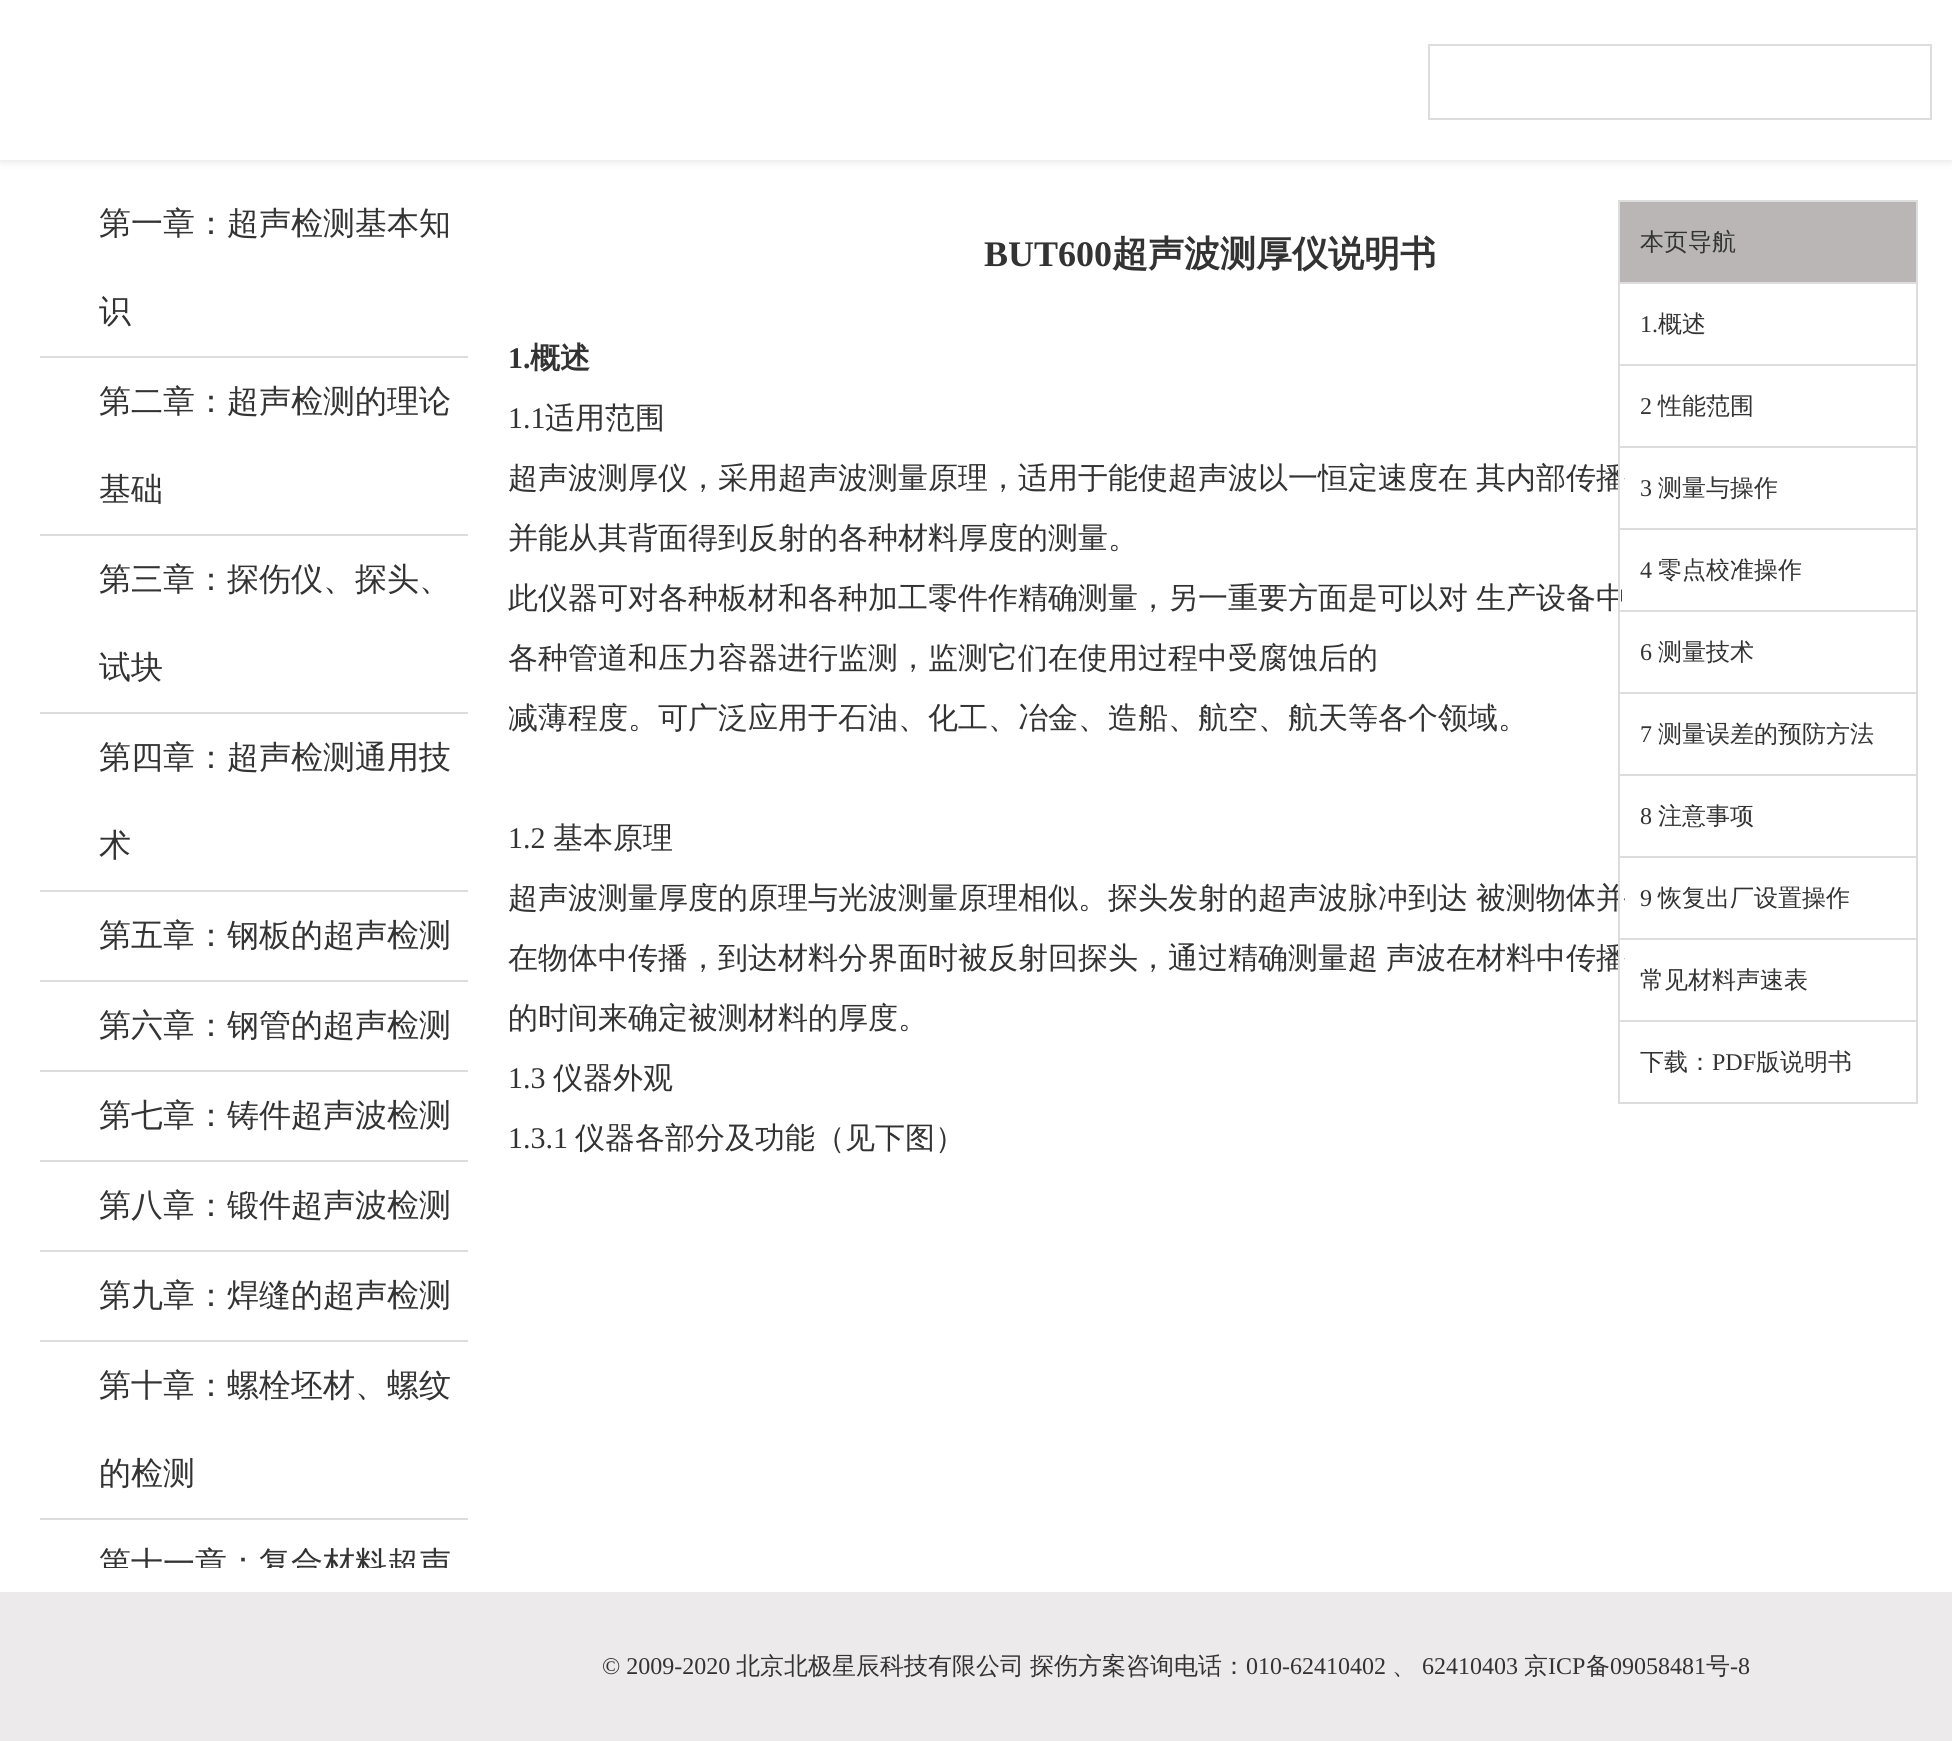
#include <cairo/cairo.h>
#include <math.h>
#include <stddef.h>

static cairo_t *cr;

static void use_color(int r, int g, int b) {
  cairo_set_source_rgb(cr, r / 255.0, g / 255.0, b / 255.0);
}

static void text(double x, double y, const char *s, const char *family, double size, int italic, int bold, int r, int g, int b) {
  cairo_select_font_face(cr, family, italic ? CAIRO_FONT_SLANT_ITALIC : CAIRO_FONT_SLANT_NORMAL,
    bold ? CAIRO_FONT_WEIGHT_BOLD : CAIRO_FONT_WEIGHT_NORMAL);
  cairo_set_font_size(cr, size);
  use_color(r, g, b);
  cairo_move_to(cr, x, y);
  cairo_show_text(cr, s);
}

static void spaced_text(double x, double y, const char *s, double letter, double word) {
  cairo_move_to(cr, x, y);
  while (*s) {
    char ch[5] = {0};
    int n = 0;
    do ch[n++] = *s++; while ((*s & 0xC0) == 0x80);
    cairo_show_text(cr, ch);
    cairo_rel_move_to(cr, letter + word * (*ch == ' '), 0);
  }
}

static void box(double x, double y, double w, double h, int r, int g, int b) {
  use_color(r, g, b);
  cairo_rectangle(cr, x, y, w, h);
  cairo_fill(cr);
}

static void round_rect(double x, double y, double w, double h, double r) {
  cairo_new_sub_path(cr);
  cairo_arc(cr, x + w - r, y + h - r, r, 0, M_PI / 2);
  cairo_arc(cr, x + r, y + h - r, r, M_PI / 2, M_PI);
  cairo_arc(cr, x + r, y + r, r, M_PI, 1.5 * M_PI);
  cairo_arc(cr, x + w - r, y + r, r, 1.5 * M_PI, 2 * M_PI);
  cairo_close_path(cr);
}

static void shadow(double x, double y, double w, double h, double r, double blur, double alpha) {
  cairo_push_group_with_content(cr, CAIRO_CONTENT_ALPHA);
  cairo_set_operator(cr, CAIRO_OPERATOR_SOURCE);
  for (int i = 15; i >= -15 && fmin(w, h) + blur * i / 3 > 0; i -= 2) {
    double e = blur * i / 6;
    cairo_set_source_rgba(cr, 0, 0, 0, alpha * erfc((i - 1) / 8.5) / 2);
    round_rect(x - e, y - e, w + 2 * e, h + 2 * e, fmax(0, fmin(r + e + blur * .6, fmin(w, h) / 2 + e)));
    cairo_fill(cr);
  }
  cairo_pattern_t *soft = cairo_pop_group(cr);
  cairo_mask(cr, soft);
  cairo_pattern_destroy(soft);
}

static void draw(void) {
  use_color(255, 255, 255);
  cairo_paint(cr);
  cairo_save(cr);
  cairo_rectangle(cr, 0, 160, 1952, 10);
  cairo_clip(cr);
  use_color(221, 221, 221);
  shadow(0, 0, 1952, 160, 0, 5, 1);
  cairo_restore(cr);
  cairo_rectangle(cr, 1429, 45, 502, 74);
  use_color(221, 221, 221);
  cairo_stroke(cr);
  box(40, 356, 428, 2, 221, 221, 221);
  box(40, 534, 428, 2, 221, 221, 221);
  box(40, 712, 428, 2, 221, 221, 221);
  box(40, 890, 428, 2, 221, 221, 221);
  box(40, 980, 428, 2, 221, 221, 221);
  box(40, 1070, 428, 2, 221, 221, 221);
  box(40, 1160, 428, 2, 221, 221, 221);
  box(40, 1250, 428, 2, 221, 221, 221);
  box(40, 1340, 428, 2, 221, 221, 221);
  box(40, 1518, 428, 2, 221, 221, 221);
  box(1618, 200, 300, 2, 221, 221, 221);
  box(1620, 202, 296, 80, 186, 182, 182);
  box(1916, 202, 2, 902, 221, 221, 221);
  box(1618, 282, 300, 2, 221, 221, 221);
  box(1618, 202, 2, 82, 221, 221, 221);
  box(1618, 364, 300, 2, 221, 221, 221);
  box(1618, 284, 2, 82, 221, 221, 221);
  box(1618, 446, 300, 2, 221, 221, 221);
  box(1618, 366, 2, 82, 221, 221, 221);
  box(1618, 528, 300, 2, 221, 221, 221);
  box(1618, 692, 300, 2, 221, 221, 221);
  box(1618, 774, 300, 2, 221, 221, 221);
  box(1618, 694, 2, 82, 221, 221, 221);
  box(1618, 856, 300, 2, 221, 221, 221);
  box(1618, 776, 2, 82, 221, 221, 221);
  box(1618, 938, 300, 2, 221, 221, 221);
  box(1618, 1020, 300, 2, 221, 221, 221);
  box(1618, 1102, 300, 2, 221, 221, 221);
  box(1618, 1022, 2, 82, 221, 221, 221);
  box(0, 1592, 1952, 149, 236, 234, 234);
  text(99, 234, "第一章：超声检测基本知", "WenQuanYi Zen Hei Medium", 32, 0, 0, 51, 51, 51);
  text(99, 322, "识", "WenQuanYi Zen Hei Medium", 32, 0, 0, 51, 51, 51);
  text(99, 412, "第二章：超声检测的理论", "WenQuanYi Zen Hei Medium", 32, 0, 0, 51, 51, 51);
  text(99, 500, "基础", "WenQuanYi Zen Hei Medium", 32, 0, 0, 51, 51, 51);
  text(99, 590, "第三章：探伤仪、探头、", "WenQuanYi Zen Hei Medium", 32, 0, 0, 51, 51, 51);
  text(99, 678, "试块", "WenQuanYi Zen Hei Medium", 32, 0, 0, 51, 51, 51);
  text(99, 768, "第四章：超声检测通用技", "WenQuanYi Zen Hei Medium", 32, 0, 0, 51, 51, 51);
  text(99, 856, "术", "WenQuanYi Zen Hei Medium", 32, 0, 0, 51, 51, 51);
  text(99, 946, "第五章：钢板的超声检测", "WenQuanYi Zen Hei Medium", 32, 0, 0, 51, 51, 51);
  text(99, 1036, "第六章：钢管的超声检测", "WenQuanYi Zen Hei Medium", 32, 0, 0, 51, 51, 51);
  text(99, 1126, "第七章：铸件超声波检测", "WenQuanYi Zen Hei Medium", 32, 0, 0, 51, 51, 51);
  text(99, 1216, "第八章：锻件超声波检测", "WenQuanYi Zen Hei Medium", 32, 0, 0, 51, 51, 51);
  text(99, 1306, "第九章：焊缝的超声检测", "WenQuanYi Zen Hei Medium", 32, 0, 0, 51, 51, 51);
  text(99, 1396, "第十章：螺栓坯材、螺纹", "WenQuanYi Zen Hei Medium", 32, 0, 0, 51, 51, 51);
  text(99, 1484, "的检测", "WenQuanYi Zen Hei Medium", 32, 0, 0, 51, 51, 51);
  cairo_save(cr);
  cairo_rectangle(cr, 40, 1520, 428, 48);
  cairo_clip(cr);
  text(99, 1574, "第十一章：复合材料超声", "WenQuanYi Zen Hei Medium", 32, 0, 0, 51, 51, 51);
  cairo_restore(cr);
  text(984, 266, "BUT600", "Liberation Serif", 36, 0, 1, 51, 51, 51);
  text(1112, 266, "超声波测厚仪说明书", "WenQuanYi Zen Hei", 36, 0, 1, 51, 51, 51);
  text(1640, 250, "本页导航", "WenQuanYi Zen Hei Medium", 24, 0, 0, 51, 51, 51);
  text(1640, 332, "1.", "Liberation Serif", 24, 0, 0, 51, 51, 51);
  text(1658, 332, "概述", "WenQuanYi Zen Hei Medium", 24, 0, 0, 51, 51, 51);
  text(1640, 414, "2", "Liberation Serif", 24, 0, 0, 51, 51, 51);
  text(1658, 414, "性能范围", "WenQuanYi Zen Hei Medium", 24, 0, 0, 51, 51, 51);
  text(1640, 496, "3", "Liberation Serif", 24, 0, 0, 51, 51, 51);
  text(1658, 496, "测量与操作", "WenQuanYi Zen Hei Medium", 24, 0, 0, 51, 51, 51);
  text(1640, 578, "4", "Liberation Serif", 24, 0, 0, 51, 51, 51);
  text(1658, 578, "零点校准操作", "WenQuanYi Zen Hei Medium", 24, 0, 0, 51, 51, 51);
  text(1640, 660, "6", "Liberation Serif", 24, 0, 0, 51, 51, 51);
  text(1658, 660, "测量技术", "WenQuanYi Zen Hei Medium", 24, 0, 0, 51, 51, 51);
  text(1640, 742, "7", "Liberation Serif", 24, 0, 0, 51, 51, 51);
  text(1658, 742, "测量误差的预防方法", "WenQuanYi Zen Hei Medium", 24, 0, 0, 51, 51, 51);
  text(1640, 824, "8", "Liberation Serif", 24, 0, 0, 51, 51, 51);
  text(1658, 824, "注意事项", "WenQuanYi Zen Hei Medium", 24, 0, 0, 51, 51, 51);
  text(1640, 906, "9", "Liberation Serif", 24, 0, 0, 51, 51, 51);
  text(1658, 906, "恢复出厂设置操作", "WenQuanYi Zen Hei Medium", 24, 0, 0, 51, 51, 51);
  text(1640, 988, "常见材料声速表", "WenQuanYi Zen Hei Medium", 24, 0, 0, 51, 51, 51);
  text(1640, 1070, "下载：", "WenQuanYi Zen Hei Medium", 24, 0, 0, 51, 51, 51);
  text(1712, 1070, "PDF", "Liberation Serif", 24, 0, 0, 51, 51, 51);
  text(1756, 1070, "版说明书", "WenQuanYi Zen Hei Medium", 24, 0, 0, 51, 51, 51);
  text(508, 368, "1.", "Liberation Serif", 30, 0, 1, 51, 51, 51);
  text(530, 368, "概述", "WenQuanYi Zen Hei", 30, 0, 1, 51, 51, 51);
  text(508, 428, "1.1", "Liberation Serif", 30, 0, 0, 51, 51, 51);
  text(545, 428, "适用范围", "WenQuanYi Zen Hei Medium", 30, 0, 0, 51, 51, 51);
  spaced_text(508, 488, "超声波测厚仪，采用超声波测量原理，适用于能使超声波以一恒定速度在 其内部传播", 0, -1);
  box(1618, 448, 2, 82, 221, 221, 221);
  box(1620, 463, 4, 29, 255, 255, 255);
  text(508, 548, "并能从其背面得到反射的各种材料厚度的测量。", "WenQuanYi Zen Hei Medium", 30, 0, 0, 51, 51, 51);
  spaced_text(508, 608, "此仪器可对各种板材和各种加工零件作精确测量，另一重要方面是可以对 生产设备中", 0, -1);
  box(1618, 612, 2, 82, 221, 221, 221);
  box(1618, 610, 300, 2, 221, 221, 221);
  box(1618, 530, 2, 82, 221, 221, 221);
  box(1620, 589, 1, 13, 255, 255, 255);
  text(508, 668, "各种管道和压力容器进行监测，监测它们在使用过程中受腐蚀后的", "WenQuanYi Zen Hei Medium", 30, 0, 0, 51, 51, 51);
  text(508, 728, "减薄程度。可广泛应用于石油、化工、冶金、造船、航空、航天等各个领域。", "WenQuanYi Zen Hei Medium", 30, 0, 0, 51, 51, 51);
  text(508, 848, "1.2", "Liberation Serif", 30, 0, 0, 51, 51, 51);
  text(553, 848, "基本原理", "WenQuanYi Zen Hei Medium", 30, 0, 0, 51, 51, 51);
  spaced_text(508, 908, "超声波测量厚度的原理与光波测量原理相似。探头发射的超声波脉冲到达 被测物体并", 0, -1);
  box(1618, 858, 2, 82, 221, 221, 221);
  box(1620, 890, 4, 11, 255, 255, 255);
  use_color(51, 51, 51);
  spaced_text(508, 968, "在物体中传播，到达材料分界面时被反射回探头，通过精确测量超 声波在材料中传播", 0, -1);
  box(1618, 940, 2, 82, 221, 221, 221);
  box(1620, 943, 4, 29, 255, 255, 255);
  text(508, 1028, "的时间来确定被测材料的厚度。", "WenQuanYi Zen Hei Medium", 30, 0, 0, 51, 51, 51);
  text(508, 1088, "1.3", "Liberation Serif", 30, 0, 0, 51, 51, 51);
  text(553, 1088, "仪器外观", "WenQuanYi Zen Hei Medium", 30, 0, 0, 51, 51, 51);
  text(508, 1148, "1.3.1", "Liberation Serif", 30, 0, 0, 51, 51, 51);
  text(575, 1148, "仪器各部分及功能（见下图）", "WenQuanYi Zen Hei Medium", 30, 0, 0, 51, 51, 51);
  text(602, 1674, "© 2009-2020", "Liberation Serif", 24, 0, 0, 51, 51, 51);
  text(736, 1674, "北京北极星辰科技有限公司", "WenQuanYi Zen Hei Medium", 24, 0, 0, 51, 51, 51);
  text(1030, 1674, "探伤方案咨询电话：", "WenQuanYi Zen Hei Medium", 24, 0, 0, 51, 51, 51);
  text(1246, 1674, "010-62410402", "Liberation Serif", 24, 0, 0, 51, 51, 51);
  text(1392, 1674, "、", "WenQuanYi Zen Hei Medium", 24, 0, 0, 51, 51, 51);
  text(1422, 1674, "62410403", "Liberation Serif", 24, 0, 0, 51, 51, 51);
  text(1524, 1674, "京", "WenQuanYi Zen Hei Medium", 24, 0, 0, 51, 51, 51);
  text(1548, 1674, "ICP", "Liberation Serif", 24, 0, 0, 51, 51, 51);
  text(1586, 1674, "备", "WenQuanYi Zen Hei Medium", 24, 0, 0, 51, 51, 51);
  text(1610, 1674, "09058481", "Liberation Serif", 24, 0, 0, 51, 51, 51);
  text(1706, 1674, "号", "WenQuanYi Zen Hei Medium", 24, 0, 0, 51, 51, 51);
  text(1730, 1674, "-8", "Liberation Serif", 24, 0, 0, 51, 51, 51);
}

int main(void) {
  cairo_surface_t *surface = cairo_image_surface_create(CAIRO_FORMAT_RGB24, 1952, 1741);
  cr = cairo_create(surface);
  cairo_font_options_t *options = cairo_font_options_create();
  cairo_font_options_set_hint_metrics(options, CAIRO_HINT_METRICS_OFF);
  cairo_font_options_set_hint_style(options, CAIRO_HINT_STYLE_NONE);
  cairo_set_font_options(cr, options);
  cairo_set_miter_limit(cr, 4);
  draw();
  cairo_surface_write_to_png(surface, "out.png");
  cairo_font_options_destroy(options);
  cairo_destroy(cr);
  cairo_surface_destroy(surface);
  return 0;
}
